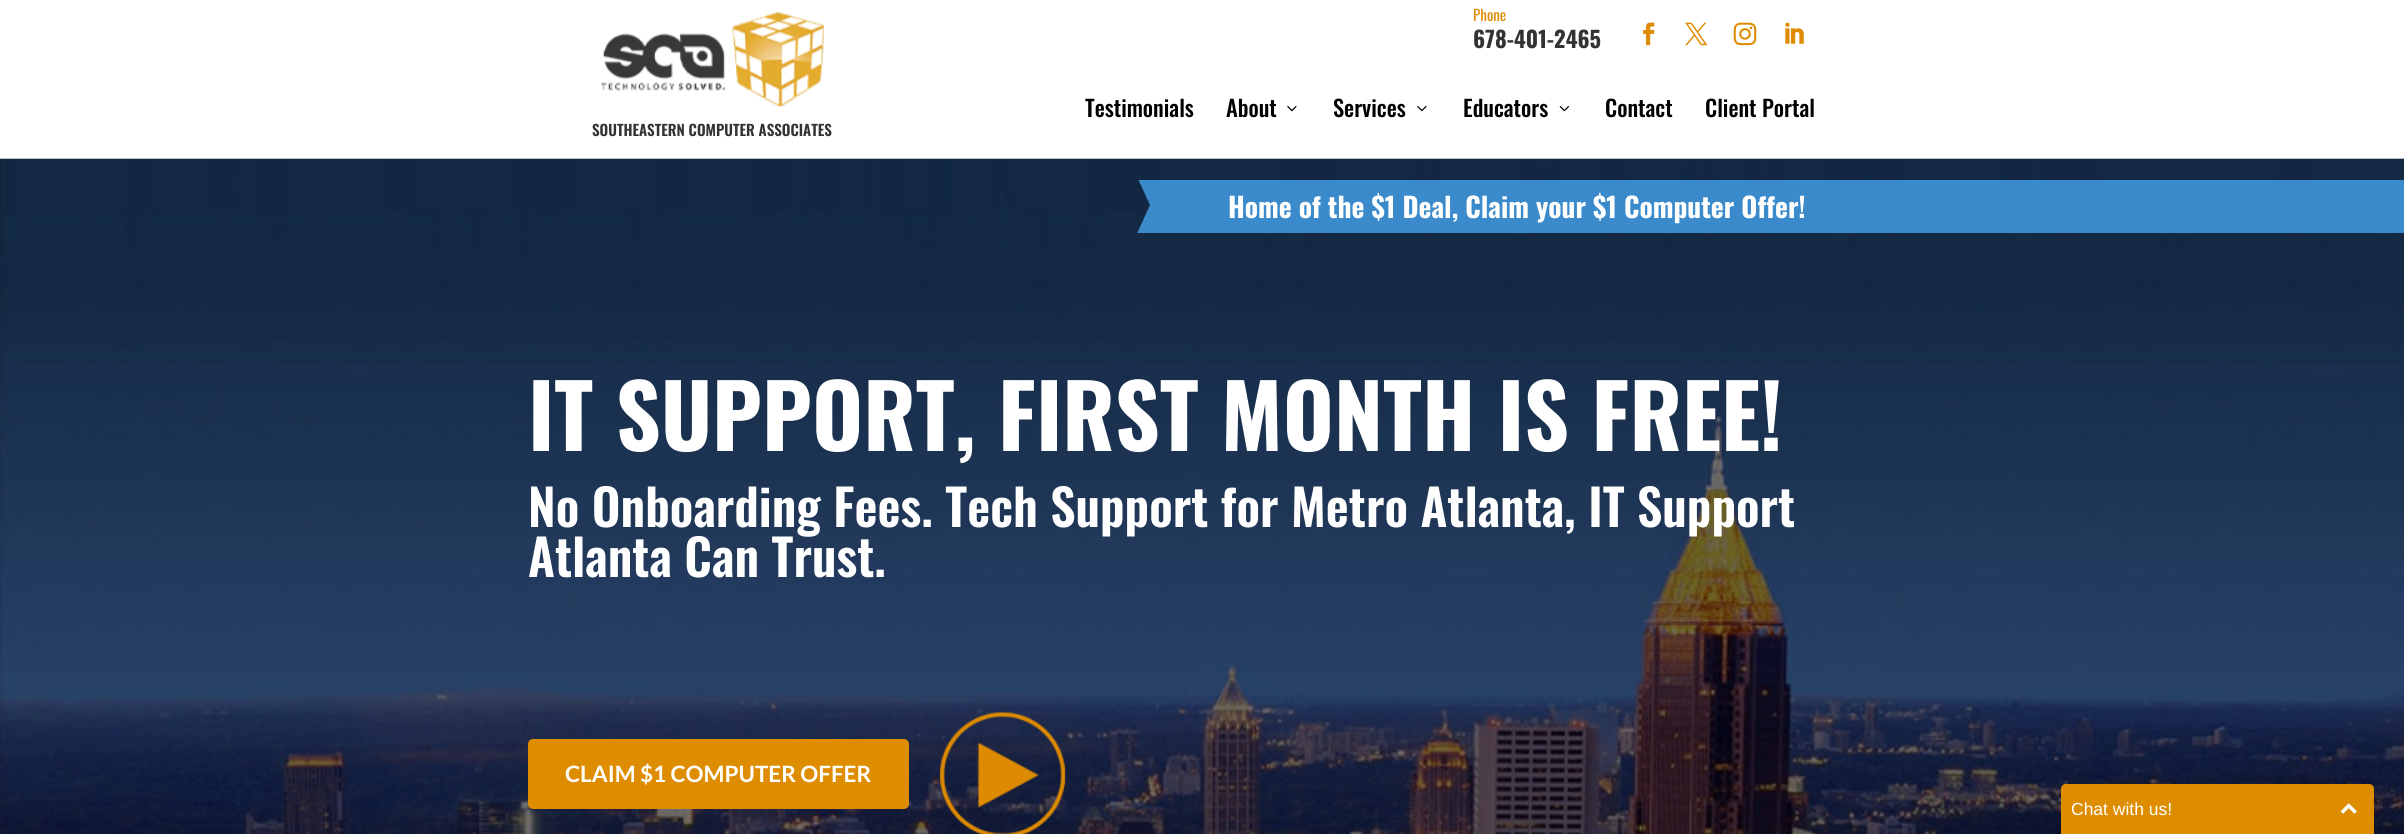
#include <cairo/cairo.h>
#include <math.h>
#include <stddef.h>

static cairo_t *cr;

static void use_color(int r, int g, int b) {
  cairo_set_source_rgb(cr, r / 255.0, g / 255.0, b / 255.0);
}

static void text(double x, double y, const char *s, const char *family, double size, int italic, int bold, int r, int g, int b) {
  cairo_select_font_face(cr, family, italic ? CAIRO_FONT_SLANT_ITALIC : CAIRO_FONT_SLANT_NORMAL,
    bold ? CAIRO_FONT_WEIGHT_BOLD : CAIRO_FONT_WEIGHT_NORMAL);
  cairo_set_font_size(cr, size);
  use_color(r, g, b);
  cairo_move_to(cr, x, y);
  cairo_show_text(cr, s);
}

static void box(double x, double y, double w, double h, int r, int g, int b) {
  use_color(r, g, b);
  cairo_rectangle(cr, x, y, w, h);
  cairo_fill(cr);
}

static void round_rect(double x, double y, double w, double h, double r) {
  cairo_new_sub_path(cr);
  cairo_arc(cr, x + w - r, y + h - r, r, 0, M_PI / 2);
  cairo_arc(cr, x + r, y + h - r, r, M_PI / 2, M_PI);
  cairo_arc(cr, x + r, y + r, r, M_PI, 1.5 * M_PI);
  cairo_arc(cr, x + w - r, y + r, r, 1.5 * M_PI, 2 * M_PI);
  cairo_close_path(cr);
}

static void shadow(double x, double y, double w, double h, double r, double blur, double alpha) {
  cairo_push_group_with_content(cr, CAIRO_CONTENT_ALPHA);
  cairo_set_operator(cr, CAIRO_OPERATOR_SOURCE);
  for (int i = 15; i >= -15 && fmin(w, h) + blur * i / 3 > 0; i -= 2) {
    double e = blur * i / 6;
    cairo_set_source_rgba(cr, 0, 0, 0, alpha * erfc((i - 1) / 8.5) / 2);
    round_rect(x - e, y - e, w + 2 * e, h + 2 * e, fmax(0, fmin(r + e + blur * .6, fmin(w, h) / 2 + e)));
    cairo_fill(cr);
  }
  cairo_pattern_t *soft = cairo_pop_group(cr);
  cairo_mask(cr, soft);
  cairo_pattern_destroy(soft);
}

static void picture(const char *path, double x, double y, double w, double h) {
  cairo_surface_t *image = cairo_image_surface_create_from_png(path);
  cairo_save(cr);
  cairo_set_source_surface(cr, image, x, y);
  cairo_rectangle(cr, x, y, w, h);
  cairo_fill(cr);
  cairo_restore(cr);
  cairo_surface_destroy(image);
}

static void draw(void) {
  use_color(255, 255, 255);
  cairo_paint(cr);
  box(0, 158, 2404, 1, 238, 238, 238);
  picture("img_01.png", 1643, 22, 12, 24);
  picture("img_02.png", 1685, 22, 23, 24);
  picture("img_03.png", 1733, 22, 24, 24);
  picture("img_04.png", 1785, 22, 19, 22);
  picture("img_05.png", 1287, 106, 10, 6);
  picture("img_05.png", 1417, 106, 10, 6);
  picture("img_06.png", 1559, 106, 10, 6);
  picture("img_07.png", 601, 12, 223, 95);
  picture("img_08.png", 0, 158, 2404, 676);
  box(1190, 180, 1214, 53, 59, 138, 203);
  cairo_save(cr);
  cairo_rectangle(cr, 1103, 180, 87, 53);
  cairo_clip(cr);
  cairo_new_path(cr);
  cairo_move_to(cr, 1150, 205);
  cairo_line_to(cr, 1109, 295);
  cairo_line_to(cr, 1191, 295);
  cairo_line_to(cr, 1191, 292);
  cairo_line_to(cr, 1192, 295);
  cairo_line_to(cr, 1192, 118);
  cairo_line_to(cr, 1110, 118);
  cairo_close_path(cr);
  cairo_fill(cr);
  cairo_restore(cr);
  use_color(223, 141, 0);
  round_rect(530, 741, 377, 66, 3);
  cairo_fill_preserve(cr);
  cairo_set_line_width(cr, 4);
  cairo_stroke(cr);
  picture("img_09.png", 939, 712, 127, 122);
  use_color(0, 0, 0);
  shadow(2061, 786, 313, 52, 5, 6, 0.2);
  use_color(223, 141, 0);
  cairo_new_path(cr);
  cairo_move_to(cr, 2066, 784);
  cairo_line_to(cr, 2369, 784);
  cairo_curve_to(cr, 2372, 784, 2374, 786, 2374, 789);
  cairo_line_to(cr, 2374, 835);
  cairo_line_to(cr, 2061, 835);
  cairo_line_to(cr, 2061, 789);
  cairo_curve_to(cr, 2061, 786, 2063, 784, 2066, 784);
  cairo_close_path(cr);
  cairo_fill(cr);
  picture("img_10.png", 2340, 803, 17, 11);
  text(1473, 21, "Phone", "Oswald", 15, 0, 0, 223, 139, 1);
  text(1473, 48, "678-401-2465", "Oswald", 22.5, 0, 1, 51, 51, 51);
  text(1085, 117, "Testimonials", "Oswald Medium", 22.5, 0, 0, 0, 0, 0);
  text(1226, 117, "About", "Oswald Medium", 22.5, 0, 0, 0, 0, 0);
  text(1333, 117, "Services", "Oswald Medium", 22.5, 0, 0, 0, 0, 0);
  text(1463, 117, "Educators", "Oswald Medium", 22.5, 0, 0, 0, 0, 0);
  text(1605, 117, "Contact", "Oswald Medium", 22.5, 0, 0, 0, 0, 0);
  text(1705, 117, "Client Portal", "Oswald Medium", 22.5, 0, 0, 0, 0, 0);
  text(592, 136, "SOUTHEASTERN COMPUTER ASSOCIATES", "Oswald SemiBold", 15, 0, 0, 51, 51, 51);
  text(1228, 218, "Home of the $1 Deal, Claim your $1 Computer Offer!", "Oswald", 27.5, 0, 1, 255, 255, 255);
  text(528, 451, "IT SUPPORT, FIRST MONTH IS FREE!", "Oswald", 87.5, 0, 1, 255, 255, 255);
  text(528, 527, "No Onboarding Fees. Tech Support for Metro Atlanta, IT Support", "Oswald SemiBold", 50, 0, 0, 255, 255, 255);
  text(528, 577, "Atlanta Can Trust.", "Oswald SemiBold", 50, 0, 0, 255, 255, 255);
  text(565, 782, "CLAIM $1 COMPUTER OFFER", "Lato", 22.5, 0, 1, 255, 255, 255);
  text(2071, 815, "Chat with us!", "Liberation Sans", 17.5, 0, 0, 255, 255, 255);
}

int main(void) {
  cairo_surface_t *surface = cairo_image_surface_create(CAIRO_FORMAT_RGB24, 2404, 834);
  cr = cairo_create(surface);
  cairo_font_options_t *options = cairo_font_options_create();
  cairo_font_options_set_hint_metrics(options, CAIRO_HINT_METRICS_OFF);
  cairo_font_options_set_hint_style(options, CAIRO_HINT_STYLE_NONE);
  cairo_set_font_options(cr, options);
  cairo_set_miter_limit(cr, 4);
  draw();
  cairo_surface_write_to_png(surface, "out.png");
  cairo_font_options_destroy(options);
  cairo_destroy(cr);
  cairo_surface_destroy(surface);
  return 0;
}
